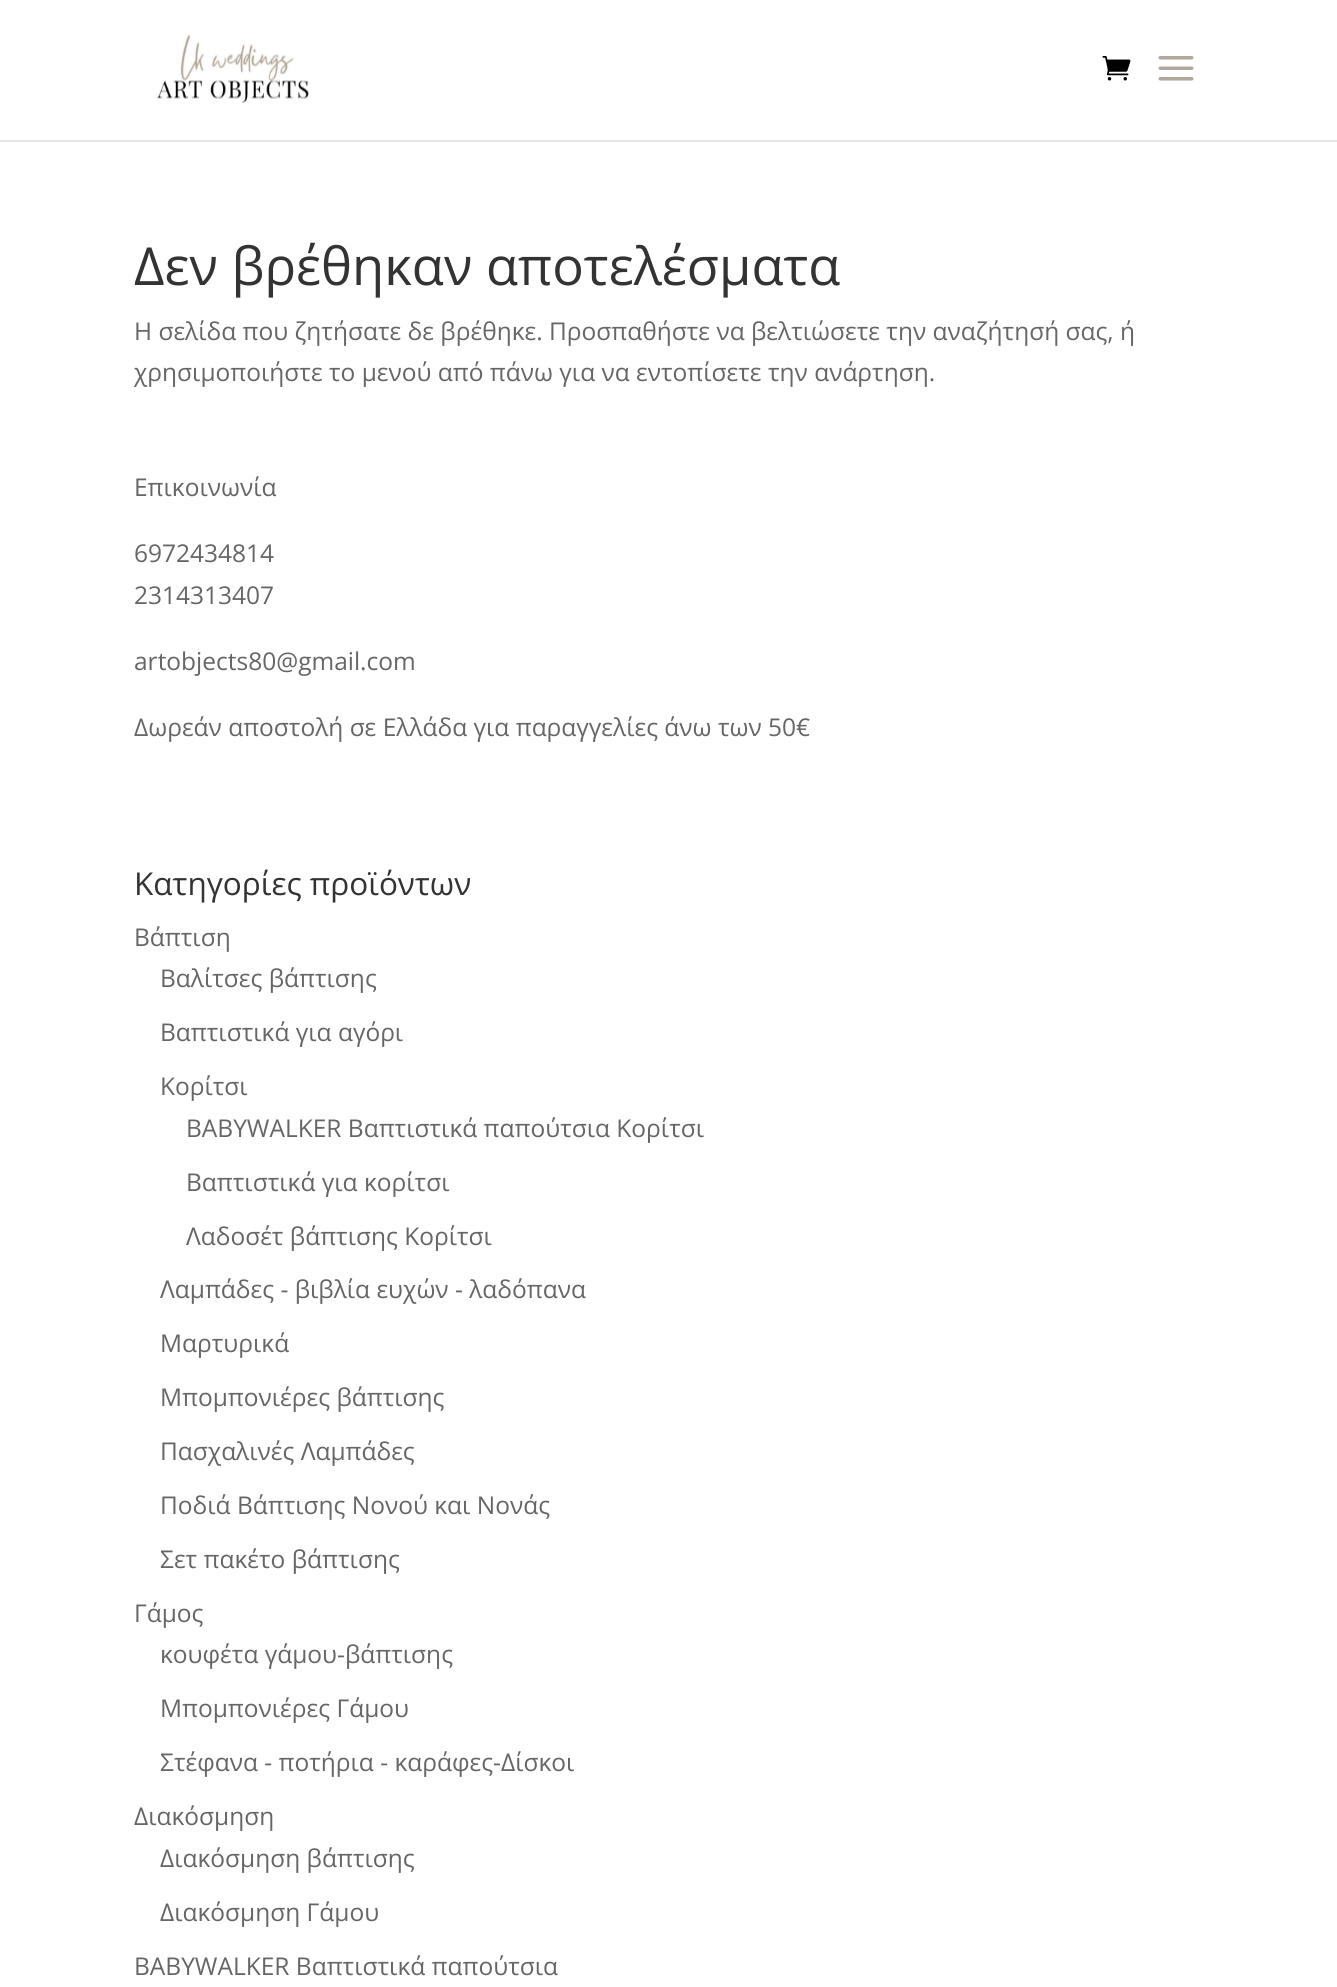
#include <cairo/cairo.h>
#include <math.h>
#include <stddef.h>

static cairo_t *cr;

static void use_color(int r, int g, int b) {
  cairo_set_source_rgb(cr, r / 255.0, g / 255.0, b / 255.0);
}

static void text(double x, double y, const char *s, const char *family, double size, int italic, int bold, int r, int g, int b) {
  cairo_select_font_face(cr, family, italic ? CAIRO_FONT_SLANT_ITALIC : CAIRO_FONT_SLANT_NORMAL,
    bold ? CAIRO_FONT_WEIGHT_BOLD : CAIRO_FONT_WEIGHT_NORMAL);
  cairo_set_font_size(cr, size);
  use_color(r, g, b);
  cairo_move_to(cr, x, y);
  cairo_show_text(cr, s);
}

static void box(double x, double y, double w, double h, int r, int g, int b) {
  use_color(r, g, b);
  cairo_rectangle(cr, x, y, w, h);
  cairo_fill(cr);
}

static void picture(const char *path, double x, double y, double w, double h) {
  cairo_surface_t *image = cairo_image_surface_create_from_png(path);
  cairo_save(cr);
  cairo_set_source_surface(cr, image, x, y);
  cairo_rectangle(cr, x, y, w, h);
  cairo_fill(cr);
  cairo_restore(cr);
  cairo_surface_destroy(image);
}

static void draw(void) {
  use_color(255, 255, 255);
  cairo_paint(cr);
  box(0, 140, 1337, 2, 230, 230, 230);
  picture("img_01.png", 157, 33, 152, 70);
  picture("img_02.png", 1102, 56, 29, 25);
  picture("img_03.png", 1158, 56, 36, 25);
  text(134, 285, "Δεν βρέθηκαν αποτελέσματα", "Open Sans", 52.5, 0, 0, 51, 51, 51);
  text(134, 340, "Η σελίδα που ζητήσατε δε βρέθηκε. Προσπαθήστε να βελτιώσετε την αναζήτησή σας, ή", "Open Sans", 24.5, 0, 0, 102, 102, 102);
  text(134, 381, "χρησιμοποιήστε το μενού από πάνω για να εντοπίσετε την ανάρτηση.", "Open Sans", 24.5, 0, 0, 102, 102, 102);
  text(134, 496, "Επικοινωνία", "Open Sans", 24.5, 0, 0, 102, 102, 102);
  text(134, 562, "6972434814", "Open Sans", 24.5, 0, 0, 102, 102, 102);
  text(134, 604, "2314313407", "Open Sans", 24.5, 0, 0, 102, 102, 102);
  text(134, 670, "artobjects80@gmail.com", "Open Sans", 24.5, 0, 0, 102, 102, 102);
  text(134, 736, "Δωρεάν αποστολή σε Ελλάδα για παραγγελίες άνω των 50€", "Open Sans", 24.5, 0, 0, 102, 102, 102);
  text(134, 895, "Κατηγορίες προϊόντων", "Open Sans", 31.5, 0, 0, 51, 51, 51);
  text(134, 946, "Βάπτιση", "Open Sans", 24.5, 0, 0, 102, 102, 102);
  text(160, 987, "Βαλίτσες βάπτισης", "Open Sans", 24.5, 0, 0, 102, 102, 102);
  text(160, 1041, "Βαπτιστικά για αγόρι", "Open Sans", 24.5, 0, 0, 102, 102, 102);
  text(160, 1095, "Κορίτσι", "Open Sans", 24.5, 0, 0, 102, 102, 102);
  text(186, 1137, "BABYWALKER Βαπτιστικά παπούτσια Κορίτσι", "Open Sans", 24.5, 0, 0, 102, 102, 102);
  text(186, 1191, "Βαπτιστικά για κορίτσι", "Open Sans", 24.5, 0, 0, 102, 102, 102);
  text(186, 1245, "Λαδοσέτ βάπτισης Κορίτσι", "Open Sans", 24.5, 0, 0, 102, 102, 102);
  text(160, 1298, "Λαμπάδες - βιβλία ευχών - λαδόπανα", "Open Sans", 24.5, 0, 0, 102, 102, 102);
  text(160, 1352, "Μαρτυρικά", "Open Sans", 24.5, 0, 0, 102, 102, 102);
  text(160, 1406, "Μπομπονιέρες βάπτισης", "Open Sans", 24.5, 0, 0, 102, 102, 102);
  text(160, 1460, "Πασχαλινές Λαμπάδες", "Open Sans", 24.5, 0, 0, 102, 102, 102);
  text(160, 1514, "Ποδιά Βάπτισης Νονού και Νονάς", "Open Sans", 24.5, 0, 0, 102, 102, 102);
  text(160, 1568, "Σετ πακέτο βάπτισης", "Open Sans", 24.5, 0, 0, 102, 102, 102);
  text(134, 1622, "Γάμος", "Open Sans", 24.5, 0, 0, 102, 102, 102);
  text(160, 1663, "κουφέτα γάμου-βάπτισης", "Open Sans", 24.5, 0, 0, 102, 102, 102);
  text(160, 1717, "Μπομπονιέρες Γάμου", "Open Sans", 24.5, 0, 0, 102, 102, 102);
  text(160, 1771, "Στέφανα - ποτήρια - καράφες-Δίσκοι", "Open Sans", 24.5, 0, 0, 102, 102, 102);
  text(134, 1825, "Διακόσμηση", "Open Sans", 24.5, 0, 0, 102, 102, 102);
  text(160, 1867, "Διακόσμηση βάπτισης", "Open Sans", 24.5, 0, 0, 102, 102, 102);
  text(160, 1921, "Διακόσμηση Γάμου", "Open Sans", 24.5, 0, 0, 102, 102, 102);
  text(134, 1975, "BABYWALKER Βαπτιστικά παπούτσια", "Open Sans", 24.5, 0, 0, 102, 102, 102);
}

int main(void) {
  cairo_surface_t *surface = cairo_image_surface_create(CAIRO_FORMAT_RGB24, 1337, 1987);
  cr = cairo_create(surface);
  cairo_font_options_t *options = cairo_font_options_create();
  cairo_font_options_set_hint_metrics(options, CAIRO_HINT_METRICS_OFF);
  cairo_font_options_set_hint_style(options, CAIRO_HINT_STYLE_NONE);
  cairo_set_font_options(cr, options);
  cairo_set_miter_limit(cr, 4);
  draw();
  cairo_surface_write_to_png(surface, "out.png");
  cairo_font_options_destroy(options);
  cairo_destroy(cr);
  cairo_surface_destroy(surface);
  return 0;
}
